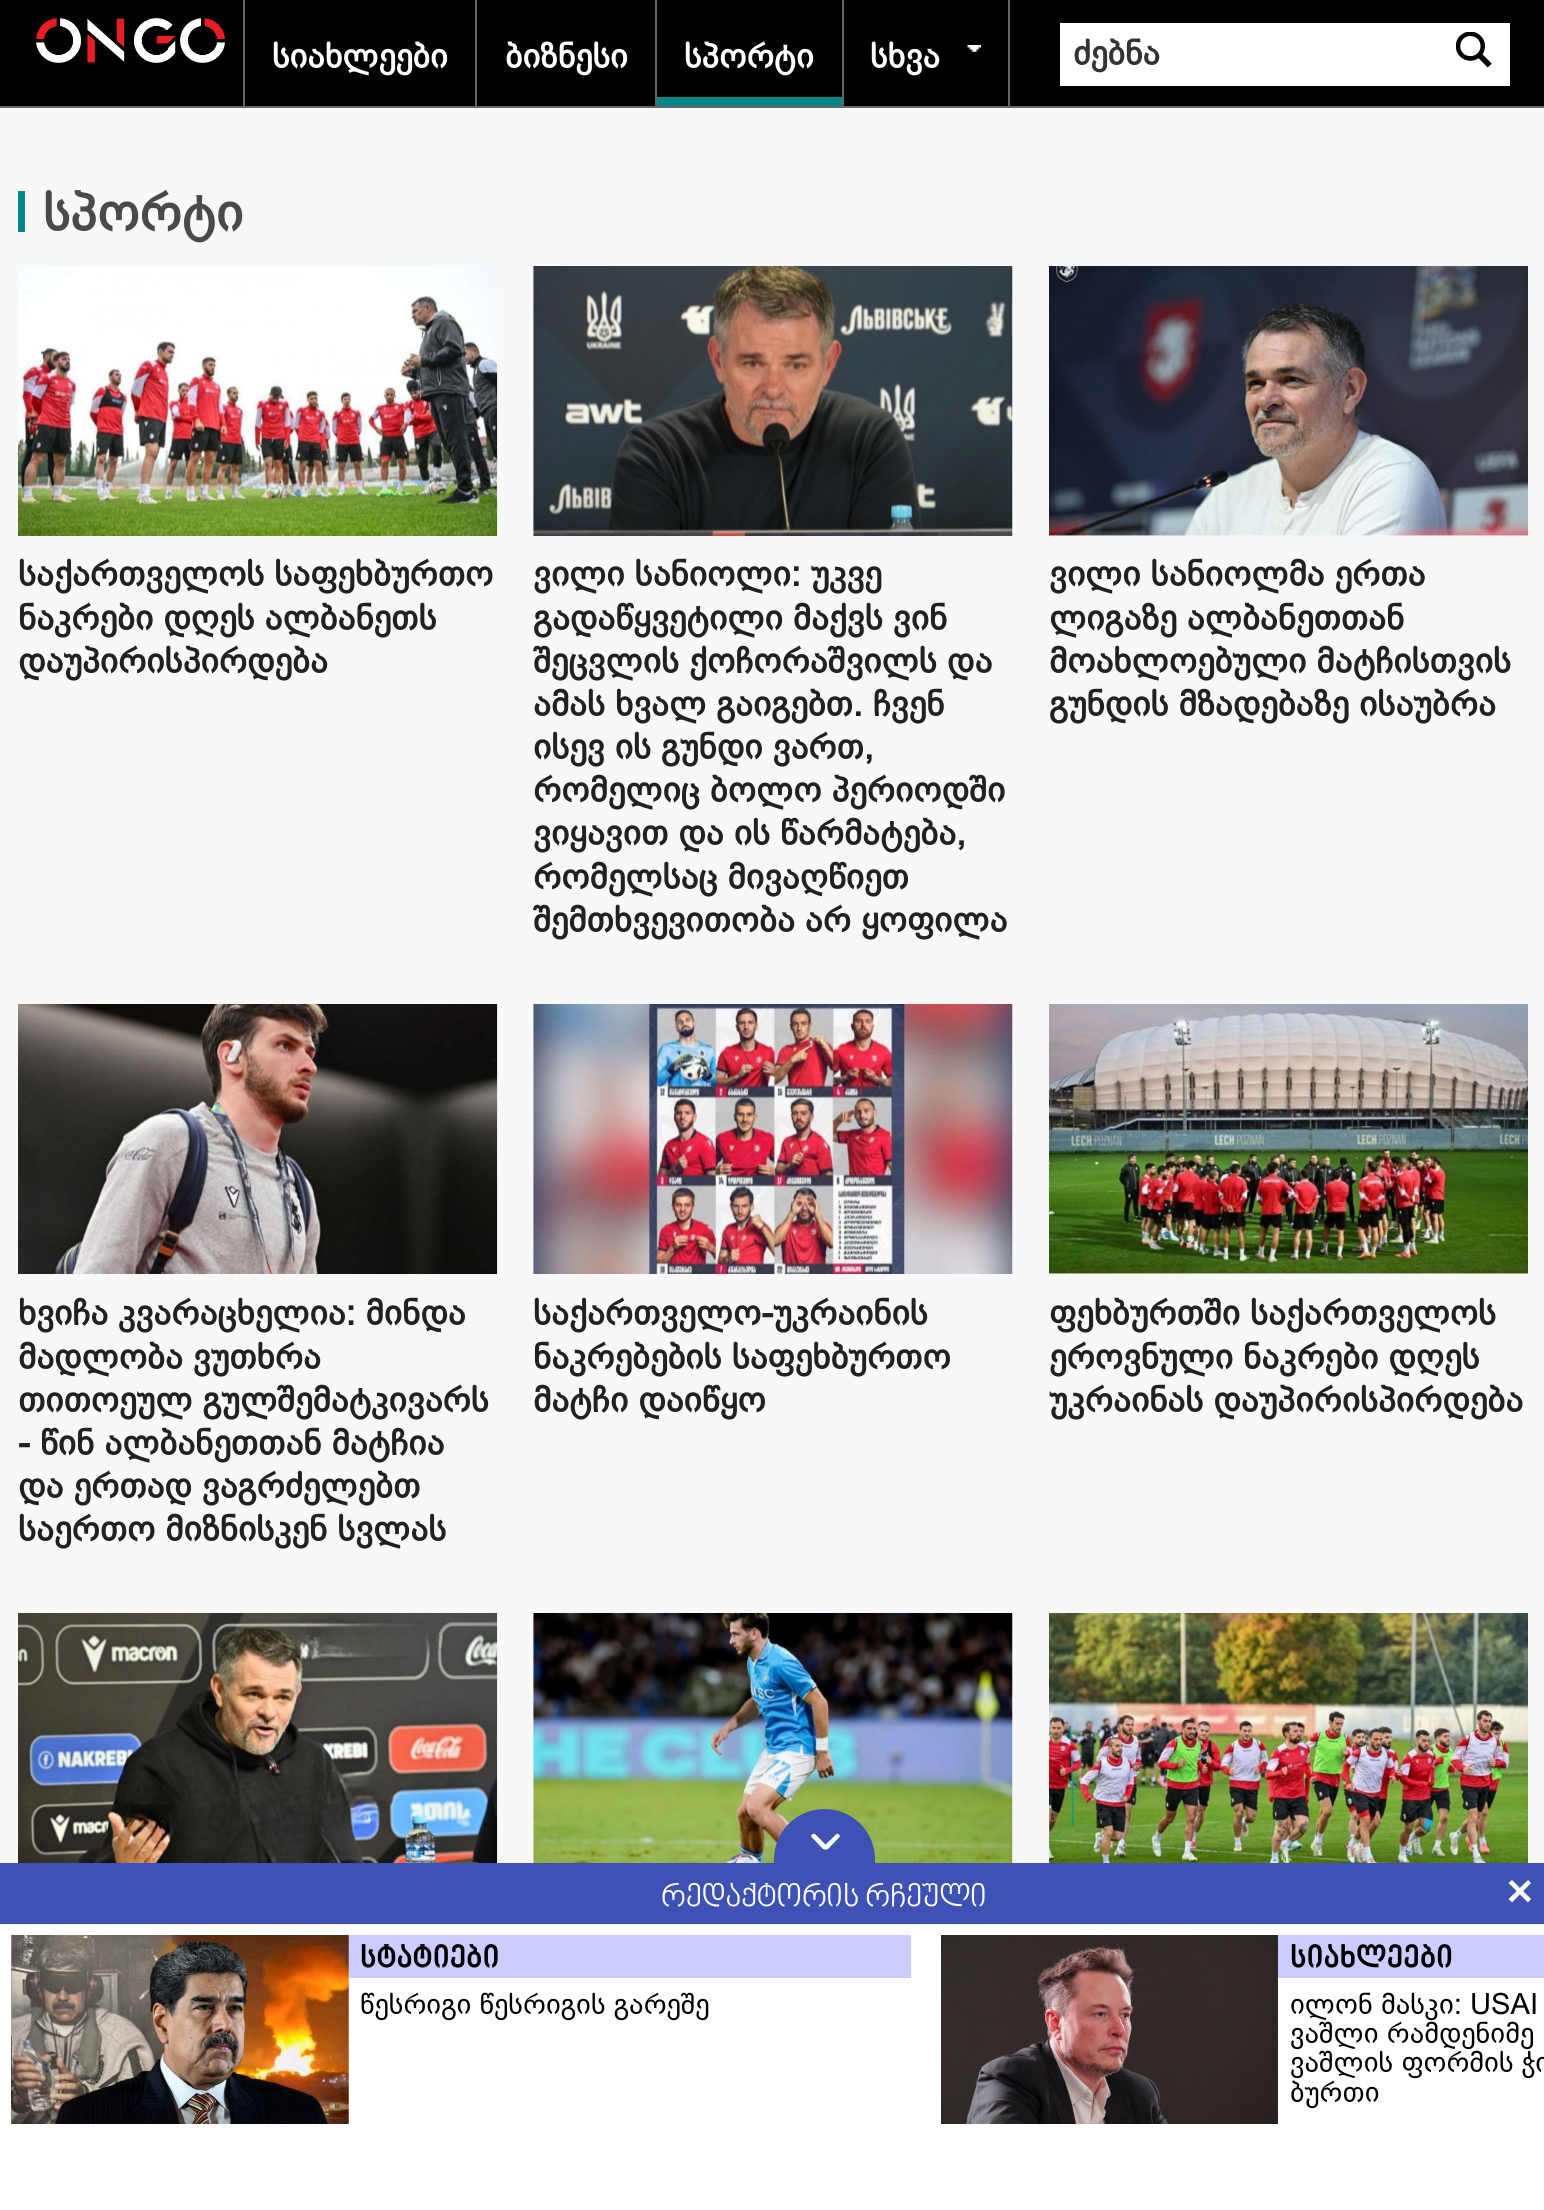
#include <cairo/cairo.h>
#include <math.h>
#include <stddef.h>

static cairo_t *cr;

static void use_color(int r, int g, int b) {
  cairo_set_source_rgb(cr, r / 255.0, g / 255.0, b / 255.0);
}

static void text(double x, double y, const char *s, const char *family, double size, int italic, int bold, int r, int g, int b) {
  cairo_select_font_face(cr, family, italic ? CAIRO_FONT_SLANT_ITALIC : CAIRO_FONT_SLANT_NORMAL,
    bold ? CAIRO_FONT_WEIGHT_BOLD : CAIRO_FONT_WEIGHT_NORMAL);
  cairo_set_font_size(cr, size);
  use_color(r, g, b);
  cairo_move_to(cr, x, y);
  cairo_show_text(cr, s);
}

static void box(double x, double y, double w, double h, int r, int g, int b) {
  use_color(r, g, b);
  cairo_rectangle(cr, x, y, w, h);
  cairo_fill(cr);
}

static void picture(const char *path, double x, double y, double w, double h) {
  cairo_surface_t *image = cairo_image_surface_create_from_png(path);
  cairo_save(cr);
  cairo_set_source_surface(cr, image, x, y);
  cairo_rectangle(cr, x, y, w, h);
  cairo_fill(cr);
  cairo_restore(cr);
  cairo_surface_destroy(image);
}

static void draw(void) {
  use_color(248, 248, 248);
  cairo_paint(cr);
  box(0, 0, 1544, 106, 0, 0, 0);
  box(0, 106, 1544, 2, 102, 102, 102);
  picture("img_01.png", 36, 18, 189, 45);
  box(1008, 0, 2, 106, 102, 102, 102);
  box(243, 0, 2, 106, 102, 102, 102);
  box(475, 0, 2, 106, 102, 102, 102);
  box(655, 0, 2, 106, 102, 102, 102);
  box(657, 97, 185, 9, 0, 136, 136);
  box(842, 0, 2, 106, 102, 102, 102);
  picture("img_02.png", 967, 45, 14, 7);
  box(1060, 23, 450, 63, 255, 255, 255);
  picture("img_03.png", 1456, 32, 36, 36);
  box(18, 191, 7, 41, 0, 136, 136);
  picture("img_04.png", 18, 266, 480, 270);
  picture("img_05.png", 533, 266, 480, 270);
  picture("img_06.png", 1049, 266, 479, 270);
  picture("img_07.png", 18, 1004, 480, 270);
  picture("img_08.png", 533, 1004, 480, 270);
  picture("img_09.png", 1049, 1004, 479, 270);
  picture("img_10.png", 18, 1613, 480, 250);
  picture("img_11.png", 533, 1613, 480, 250);
  picture("img_12.png", 1049, 1613, 479, 250);
  box(0, 1863, 1544, 61, 62, 81, 181);
  cairo_new_path(cr);
  cairo_move_to(cr, 824.5, 1809);
  cairo_curve_to(cr, 852.5, 1809, 875, 1831.5, 875, 1859.5);
  cairo_line_to(cr, 875, 1865);
  cairo_line_to(cr, 774, 1865);
  cairo_line_to(cr, 774, 1859.5);
  cairo_curve_to(cr, 774, 1831.5, 796.5, 1809, 824.5, 1809);
  cairo_close_path(cr);
  cairo_fill(cr);
  use_color(255, 255, 255);
  cairo_new_path(cr);
  cairo_move_to(cr, 839, 1834.5);
  cairo_curve_to(cr, 840, 1835.5, 840, 1837, 839, 1837.5);
  cairo_line_to(cr, 828, 1849);
  cairo_curve_to(cr, 827, 1849.5, 825.5, 1849.5, 824.5, 1849);
  cairo_curve_to(cr, 824, 1848, 824, 1846.5, 824.5, 1845.5);
  cairo_line_to(cr, 836, 1834.5);
  cairo_curve_to(cr, 836.5, 1833.5, 838, 1833.5, 839, 1834.5);
  cairo_close_path(cr);
  cairo_fill(cr);
  cairo_new_path(cr);
  cairo_move_to(cr, 812, 1834.5);
  cairo_curve_to(cr, 813, 1833.5, 814.5, 1833.5, 815.5, 1834.5);
  cairo_line_to(cr, 826.5, 1845.5);
  cairo_curve_to(cr, 827.5, 1846.5, 827.5, 1848, 826.5, 1849);
  cairo_curve_to(cr, 825.5, 1849.5, 824, 1849.5, 823, 1849);
  cairo_line_to(cr, 812, 1837.5);
  cairo_curve_to(cr, 811, 1837, 811, 1835.5, 812, 1834.5);
  cairo_close_path(cr);
  cairo_fill(cr);
  cairo_new_path(cr);
  cairo_move_to(cr, 1528, 1880);
  cairo_line_to(cr, 1531, 1883);
  cairo_line_to(cr, 1512, 1902.5);
  cairo_line_to(cr, 1508.5, 1899);
  cairo_close_path(cr);
  cairo_fill(cr);
  cairo_new_path(cr);
  cairo_move_to(cr, 1508.5, 1883);
  cairo_line_to(cr, 1512, 1880);
  cairo_line_to(cr, 1531, 1899);
  cairo_line_to(cr, 1528, 1902.5);
  cairo_close_path(cr);
  cairo_fill(cr);
  box(0, 1924, 1544, 286, 255, 255, 255);
  box(348, 1935, 563, 43, 204, 204, 255);
  picture("img_13.png", 11, 1935, 338, 189);
  box(1277, 1935, 267, 43, 204, 204, 255);
  picture("img_14.png", 941, 1935, 337, 189);
  text(272, 68, "სიახლეები", "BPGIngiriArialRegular", 35, 0, 1, 255, 255, 255);
  text(505, 68, "ბიზნესი", "BPGIngiriArialRegular", 35, 0, 1, 255, 255, 255);
  text(684, 68, "სპორტი", "BPGIngiriArialRegular", 35, 0, 1, 255, 255, 255);
  text(870, 68, "სხვა", "BPGIngiriArialRegular", 35, 0, 1, 255, 255, 255);
  text(1073, 65, "ძებნა", "BPGIngiriArialRegular", 35, 0, 1, 51, 51, 51);
  text(43, 231, "სპორტი", "BPGIngiriArialRegular", 54, 0, 1, 74, 74, 74);
  text(18, 586, "საქართველოს საფეხბურთო", "BPGIngiriArialRegular", 36, 0, 1, 33, 33, 33);
  text(18, 630, "ნაკრები დღეს ალბანეთს", "BPGIngiriArialRegular", 36, 0, 1, 33, 33, 33);
  text(18, 673, "დაუპირისპირდება", "BPGIngiriArialRegular", 36, 0, 1, 33, 33, 33);
  text(533, 586, "ვილი სანიოლი: უკვე", "BPGIngiriArialRegular", 36, 0, 1, 33, 33, 33);
  text(533, 630, "გადაწყვეტილი მაქვს ვინ", "BPGIngiriArialRegular", 36, 0, 1, 33, 33, 33);
  text(533, 673, "შეცვლის ქოჩორაშვილს და", "BPGIngiriArialRegular", 36, 0, 1, 33, 33, 33);
  text(533, 716, "ამას ხვალ გაიგებთ. ჩვენ", "BPGIngiriArialRegular", 36, 0, 1, 33, 33, 33);
  text(533, 759, "ისევ ის გუნდი ვართ,", "BPGIngiriArialRegular", 36, 0, 1, 33, 33, 33);
  text(533, 802, "რომელიც ბოლო პერიოდში", "BPGIngiriArialRegular", 36, 0, 1, 33, 33, 33);
  text(533, 845, "ვიყავით და ის წარმატება,", "BPGIngiriArialRegular", 36, 0, 1, 33, 33, 33);
  text(533, 889, "რომელსაც მივაღწიეთ", "BPGIngiriArialRegular", 36, 0, 1, 33, 33, 33);
  text(533, 932, "შემთხვევითობა არ ყოფილა", "BPGIngiriArialRegular", 36, 0, 1, 33, 33, 33);
  text(1049, 586, "ვილი სანიოლმა ერთა", "BPGIngiriArialRegular", 36, 0, 1, 33, 33, 33);
  text(1049, 630, "ლიგაზე ალბანეთთან", "BPGIngiriArialRegular", 36, 0, 1, 33, 33, 33);
  text(1049, 673, "მოახლოებული მატჩისთვის", "BPGIngiriArialRegular", 36, 0, 1, 33, 33, 33);
  text(1049, 716, "გუნდის მზადებაზე ისაუბრა", "BPGIngiriArialRegular", 36, 0, 1, 33, 33, 33);
  text(18, 1325, "ხვიჩა კვარაცხელია: მინდა", "BPGIngiriArialRegular", 36, 0, 1, 33, 33, 33);
  text(18, 1369, "მადლობა ვუთხრა", "BPGIngiriArialRegular", 36, 0, 1, 33, 33, 33);
  text(18, 1412, "თითოეულ გულშემატკივარს", "BPGIngiriArialRegular", 36, 0, 1, 33, 33, 33);
  text(18, 1455, "- წინ ალბანეთთან მატჩია", "BPGIngiriArialRegular", 36, 0, 1, 33, 33, 33);
  text(18, 1498, "და ერთად ვაგრძელებთ", "BPGIngiriArialRegular", 36, 0, 1, 33, 33, 33);
  text(18, 1541, "საერთო მიზნისკენ სვლას", "BPGIngiriArialRegular", 36, 0, 1, 33, 33, 33);
  text(533, 1325, "საქართველო-უკრაინის", "BPGIngiriArialRegular", 36, 0, 1, 33, 33, 33);
  text(533, 1369, "ნაკრებების საფეხბურთო", "BPGIngiriArialRegular", 36, 0, 1, 33, 33, 33);
  text(533, 1412, "მატჩი დაიწყო", "BPGIngiriArialRegular", 36, 0, 1, 33, 33, 33);
  text(1049, 1325, "ფეხბურთში საქართველოს", "BPGIngiriArialRegular", 36, 0, 1, 33, 33, 33);
  text(1049, 1369, "ეროვნული ნაკრები დღეს", "BPGIngiriArialRegular", 36, 0, 1, 33, 33, 33);
  text(1049, 1412, "უკრაინას დაუპირისპირდება", "BPGIngiriArialRegular", 36, 0, 1, 33, 33, 33);
  text(661, 1908, "რედაქტორის რჩეული", "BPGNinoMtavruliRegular", 31.5, 1, 0, 255, 255, 255);
  text(360, 1969, "სტატიები", "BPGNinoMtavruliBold", 31.5, 1, 1, 0, 0, 0);
  text(360, 2014, "წესრიგი წესრიგის გარეშე", "BPGIngiriArialRegular", 29.25, 0, 0, 0, 0, 0);
  text(1290, 1969, "სიახლეები", "BPGNinoMtavruliBold", 31.5, 1, 1, 0, 0, 0);
  text(1290, 2014, "ილონ მასკი: USAI", "BPGIngiriArialRegular", 29.25, 0, 0, 0, 0, 0);
  text(1290, 2043, "ვაშლი რამდენიმე", "BPGIngiriArialRegular", 29.25, 0, 0, 0, 0, 0);
  text(1290, 2072, "ვაშლის ფორმის ჭი", "BPGIngiriArialRegular", 29.25, 0, 0, 0, 0, 0);
  text(1290, 2102, "ბურთი", "BPGIngiriArialRegular", 29.25, 0, 0, 0, 0, 0);
}

int main(void) {
  cairo_surface_t *surface = cairo_image_surface_create(CAIRO_FORMAT_RGB24, 1544, 2210);
  cr = cairo_create(surface);
  cairo_font_options_t *options = cairo_font_options_create();
  cairo_font_options_set_hint_metrics(options, CAIRO_HINT_METRICS_OFF);
  cairo_font_options_set_hint_style(options, CAIRO_HINT_STYLE_NONE);
  cairo_set_font_options(cr, options);
  cairo_set_miter_limit(cr, 4);
  draw();
  cairo_surface_write_to_png(surface, "out.png");
  cairo_font_options_destroy(options);
  cairo_destroy(cr);
  cairo_surface_destroy(surface);
  return 0;
}
